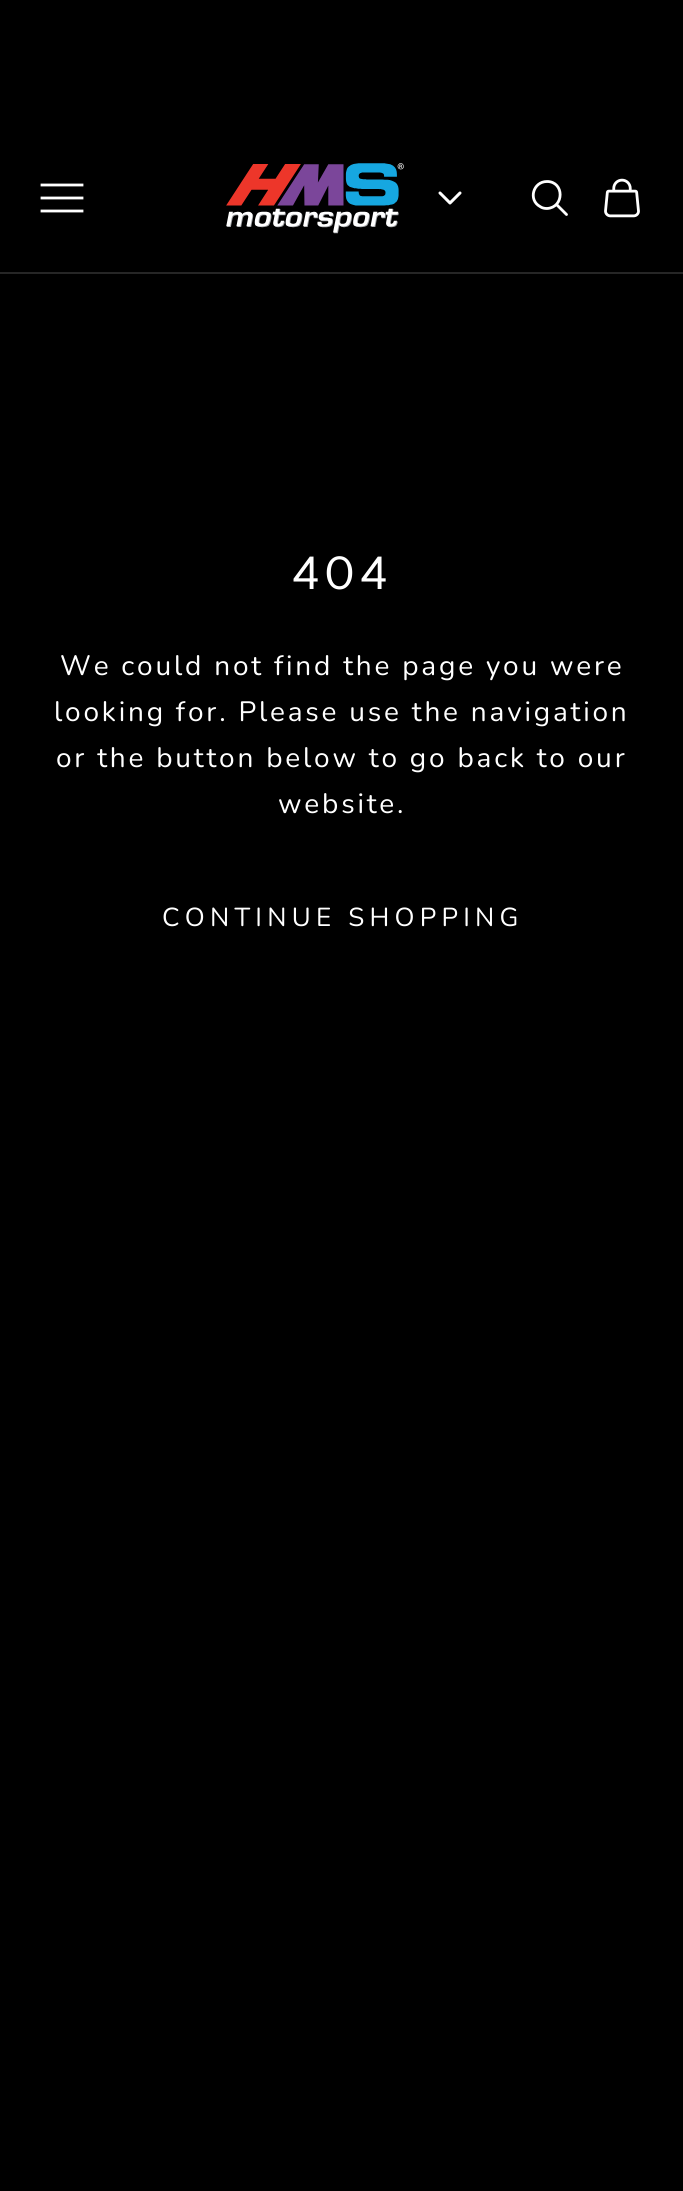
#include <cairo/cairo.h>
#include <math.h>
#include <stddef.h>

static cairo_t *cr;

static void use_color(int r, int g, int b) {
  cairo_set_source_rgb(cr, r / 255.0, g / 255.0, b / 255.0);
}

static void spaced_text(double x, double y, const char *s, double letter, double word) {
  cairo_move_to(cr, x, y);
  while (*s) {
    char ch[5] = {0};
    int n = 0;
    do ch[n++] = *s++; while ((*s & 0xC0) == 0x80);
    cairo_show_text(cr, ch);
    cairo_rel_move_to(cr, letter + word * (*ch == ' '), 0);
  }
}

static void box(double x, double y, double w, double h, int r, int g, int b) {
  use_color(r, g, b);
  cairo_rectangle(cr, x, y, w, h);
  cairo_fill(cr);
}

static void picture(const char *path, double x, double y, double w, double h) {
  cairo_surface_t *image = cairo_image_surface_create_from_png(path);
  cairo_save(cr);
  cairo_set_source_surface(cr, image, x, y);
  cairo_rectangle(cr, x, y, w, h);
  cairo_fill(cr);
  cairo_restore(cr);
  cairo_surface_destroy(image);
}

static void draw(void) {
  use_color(0, 0, 0);
  cairo_paint(cr);
  box(0, 272, 683, 2, 38, 38, 38);
  cairo_new_path(cr);
  cairo_move_to(cr, 42, 211);
  cairo_line_to(cr, 82, 211);
  cairo_move_to(cr, 42, 198);
  cairo_line_to(cr, 82, 198);
  cairo_move_to(cr, 42, 185);
  cairo_line_to(cr, 82, 185);
  use_color(255, 255, 255);
  cairo_set_line_width(cr, 2.8);
  cairo_set_line_cap(cr, CAIRO_LINE_CAP_SQUARE);
  cairo_stroke(cr);
  picture("img_01.png", 226, 163, 179, 71);
  cairo_new_path(cr);
  cairo_move_to(cr, 440, 193);
  cairo_line_to(cr, 450, 203);
  cairo_line_to(cr, 460, 193);
  cairo_set_line_width(cr, 3);
  cairo_set_line_cap(cr, CAIRO_LINE_CAP_ROUND);
  cairo_set_line_join(cr, CAIRO_LINE_JOIN_ROUND);
  cairo_stroke(cr);
  cairo_new_path(cr);
  cairo_move_to(cr, 547, 181.5);
  cairo_curve_to(cr, 533, 181.5, 528, 200, 540, 206.5);
  cairo_curve_to(cr, 542, 208, 544.5, 208.5, 547, 208.5);
  cairo_curve_to(cr, 564.5, 207.5, 564.5, 181.5, 547, 181.5);
  cairo_close_path(cr);
  cairo_set_line_width(cr, 2.8);
  cairo_set_line_cap(cr, CAIRO_LINE_CAP_BUTT);
  cairo_set_line_join(cr, CAIRO_LINE_JOIN_MITER);
  cairo_stroke(cr);
  cairo_new_path(cr);
  cairo_move_to(cr, 557, 205);
  cairo_line_to(cr, 566.5, 214.5);
  cairo_set_line_cap(cr, CAIRO_LINE_CAP_ROUND);
  cairo_stroke(cr);
  picture("img_02.png", 604, 178, 36, 40);
  cairo_select_font_face(cr, "Instrument Sans", CAIRO_FONT_SLANT_NORMAL, CAIRO_FONT_WEIGHT_NORMAL);
  cairo_set_font_size(cr, 45);
  spaced_text(292, 589, "404", 5.5, 0);
  cairo_select_font_face(cr, "Nunito", CAIRO_FONT_SLANT_NORMAL, CAIRO_FONT_WEIGHT_NORMAL);
  cairo_set_font_size(cr, 28);
  spaced_text(60, 675, "We could not find the page you were", 2.8, 0);
  spaced_text(54, 721, "looking for. Please use the navigation", 2.8, 0);
  spaced_text(56, 767, "or the button below to go back to our", 2.8, 0);
  spaced_text(278, 813, "website.", 2.8, 0);
  cairo_set_font_size(cr, 26);
  spaced_text(162, 926, "CONTINUE SHOPPING", 5.25, 0);
}

int main(void) {
  cairo_surface_t *surface = cairo_image_surface_create(CAIRO_FORMAT_RGB24, 683, 2191);
  cr = cairo_create(surface);
  cairo_font_options_t *options = cairo_font_options_create();
  cairo_font_options_set_hint_metrics(options, CAIRO_HINT_METRICS_OFF);
  cairo_font_options_set_hint_style(options, CAIRO_HINT_STYLE_NONE);
  cairo_set_font_options(cr, options);
  cairo_set_miter_limit(cr, 4);
  draw();
  cairo_surface_write_to_png(surface, "out.png");
  cairo_font_options_destroy(options);
  cairo_destroy(cr);
  cairo_surface_destroy(surface);
  return 0;
}
